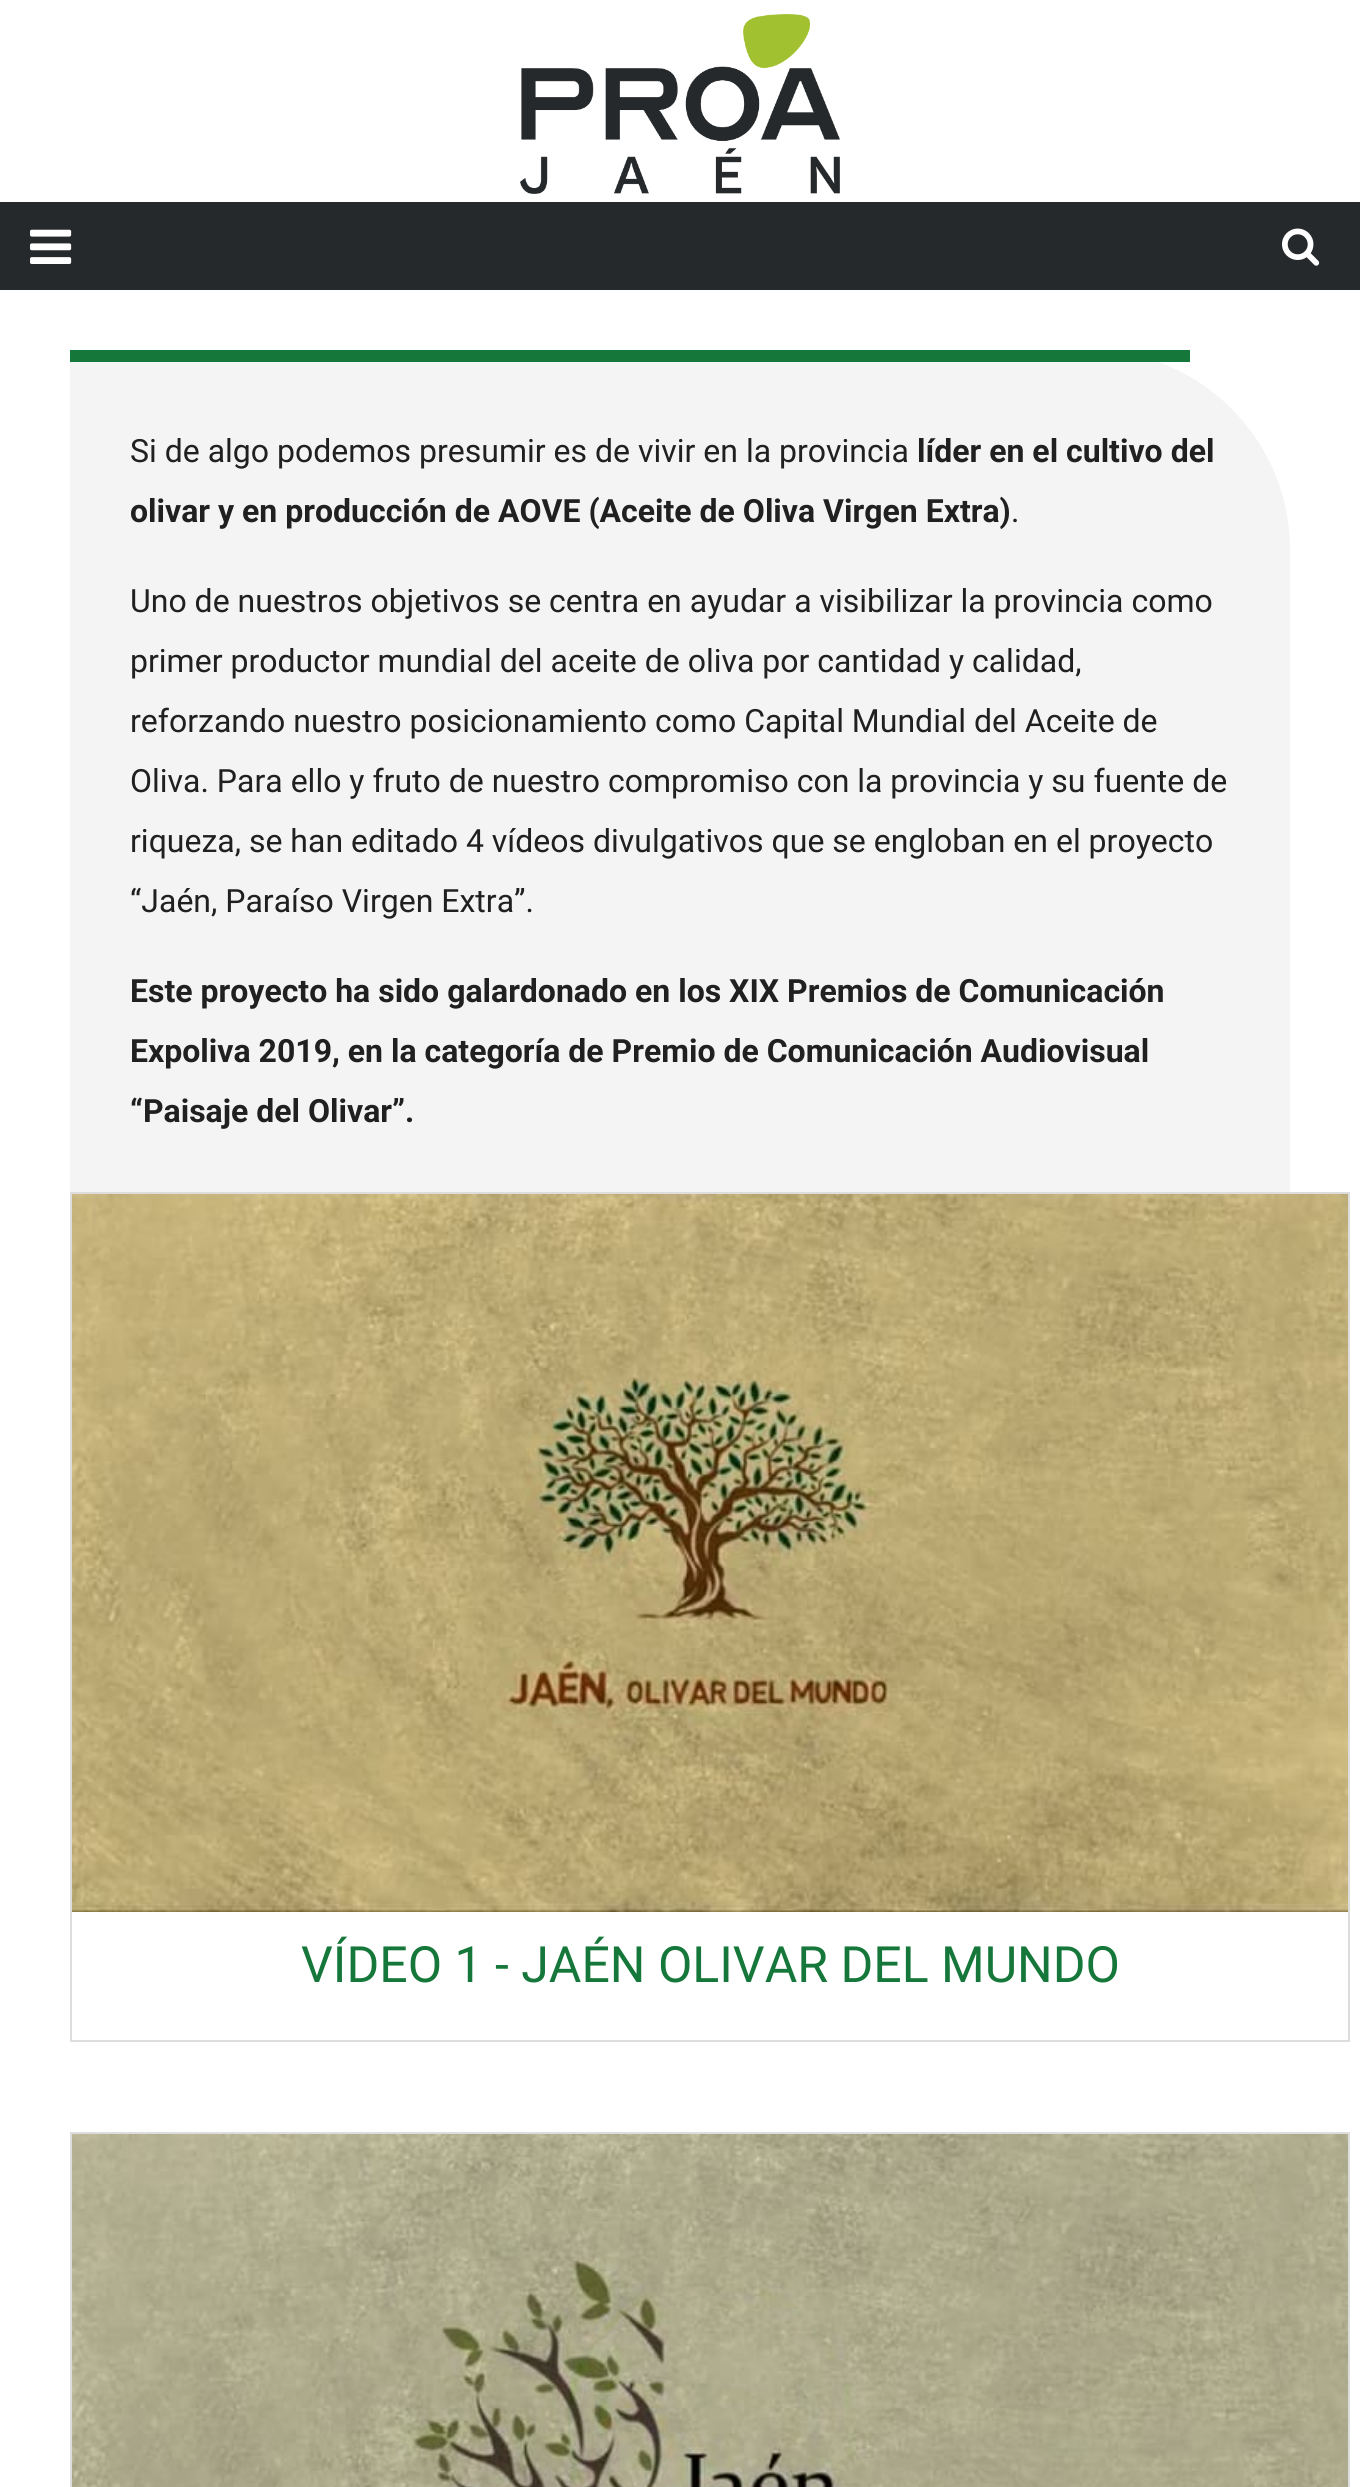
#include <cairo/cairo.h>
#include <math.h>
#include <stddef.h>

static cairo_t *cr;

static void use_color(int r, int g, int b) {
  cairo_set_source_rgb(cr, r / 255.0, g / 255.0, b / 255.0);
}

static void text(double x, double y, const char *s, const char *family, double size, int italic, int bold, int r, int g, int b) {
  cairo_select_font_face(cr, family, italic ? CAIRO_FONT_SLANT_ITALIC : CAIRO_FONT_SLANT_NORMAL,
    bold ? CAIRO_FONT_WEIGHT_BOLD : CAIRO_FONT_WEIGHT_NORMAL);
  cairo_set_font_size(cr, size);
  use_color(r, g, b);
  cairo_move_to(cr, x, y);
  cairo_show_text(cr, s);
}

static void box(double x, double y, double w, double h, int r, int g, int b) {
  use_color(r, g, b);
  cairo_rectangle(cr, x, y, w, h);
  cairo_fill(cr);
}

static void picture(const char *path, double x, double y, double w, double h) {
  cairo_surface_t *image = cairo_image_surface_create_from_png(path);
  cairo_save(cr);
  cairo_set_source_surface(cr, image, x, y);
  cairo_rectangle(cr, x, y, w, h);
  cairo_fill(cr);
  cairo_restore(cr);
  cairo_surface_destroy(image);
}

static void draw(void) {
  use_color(255, 255, 255);
  cairo_paint(cr);
  picture("img_01.png", 520, 14, 320, 180);
  box(0, 202, 1360, 88, 38, 41, 43);
  picture("img_02.png", 30, 229, 42, 35);
  picture("img_03.png", 1282, 228, 38, 38);
  use_color(244, 244, 244);
  cairo_new_path(cr);
  cairo_move_to(cr, 70, 350);
  cairo_line_to(cr, 1090, 350);
  cairo_curve_to(cr, 1200.5, 350, 1290, 439.5, 1290, 550);
  cairo_line_to(cr, 1290, 1202);
  cairo_line_to(cr, 70, 1202);
  cairo_close_path(cr);
  cairo_fill(cr);
  box(70, 350, 1120, 12, 22, 119, 58);
  cairo_rectangle(cr, 71, 1193, 1278, 848);
  use_color(221, 221, 221);
  cairo_stroke(cr);
  picture("img_04.png", 72, 1194, 1276, 718);
  cairo_rectangle(cr, 71, 2133, 1278, 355);
  cairo_stroke(cr);
  picture("img_05.png", 72, 2134, 1276, 353);
  text(130, 462, "Si de algo podemos presumir es de vivir en la provincia", "Roboto", 32, 0, 0, 32, 32, 32);
  text(917, 462, "líder en el cultivo del", "Roboto", 32, 0, 1, 32, 32, 32);
  text(130, 522, "olivar y en producción de AOVE (Aceite de Oliva Virgen Extra)", "Roboto", 32, 0, 1, 32, 32, 32);
  text(1011, 522, ".", "Roboto", 32, 0, 0, 32, 32, 32);
  text(130, 612, "Uno de nuestros objetivos se centra en ayudar a visibilizar la provincia como", "Roboto", 32, 0, 0, 32, 32, 32);
  text(130, 672, "primer productor mundial del aceite de oliva por cantidad y calidad,", "Roboto", 32, 0, 0, 32, 32, 32);
  text(130, 732, "reforzando nuestro posicionamiento como Capital Mundial del Aceite de", "Roboto", 32, 0, 0, 32, 32, 32);
  text(130, 792, "Oliva. Para ello y fruto de nuestro compromiso con la provincia y su fuente de", "Roboto", 32, 0, 0, 32, 32, 32);
  text(130, 852, "riqueza, se han editado 4 vídeos divulgativos que se engloban en el proyecto", "Roboto", 32, 0, 0, 32, 32, 32);
  text(130, 912, "“Jaén, Paraíso Virgen Extra”.", "Roboto", 32, 0, 0, 32, 32, 32);
  text(130, 1002, "Este proyecto ha sido galardonado en los XIX Premios de Comunicación", "Roboto", 32, 0, 1, 32, 32, 32);
  text(130, 1062, "Expoliva 2019, en la categoría de Premio de Comunicación Audiovisual", "Roboto", 32, 0, 1, 32, 32, 32);
  text(130, 1122, "“Paisaje del Olivar”.", "Roboto", 32, 0, 1, 32, 32, 32);
  text(301, 1982, "VÍDEO 1 - JAÉN OLIVAR DEL MUNDO", "Roboto", 50, 0, 0, 22, 119, 58);
}

int main(void) {
  cairo_surface_t *surface = cairo_image_surface_create(CAIRO_FORMAT_RGB24, 1360, 2487);
  cr = cairo_create(surface);
  cairo_font_options_t *options = cairo_font_options_create();
  cairo_font_options_set_hint_metrics(options, CAIRO_HINT_METRICS_OFF);
  cairo_font_options_set_hint_style(options, CAIRO_HINT_STYLE_NONE);
  cairo_set_font_options(cr, options);
  cairo_set_miter_limit(cr, 4);
  draw();
  cairo_surface_write_to_png(surface, "out.png");
  cairo_font_options_destroy(options);
  cairo_destroy(cr);
  cairo_surface_destroy(surface);
  return 0;
}
